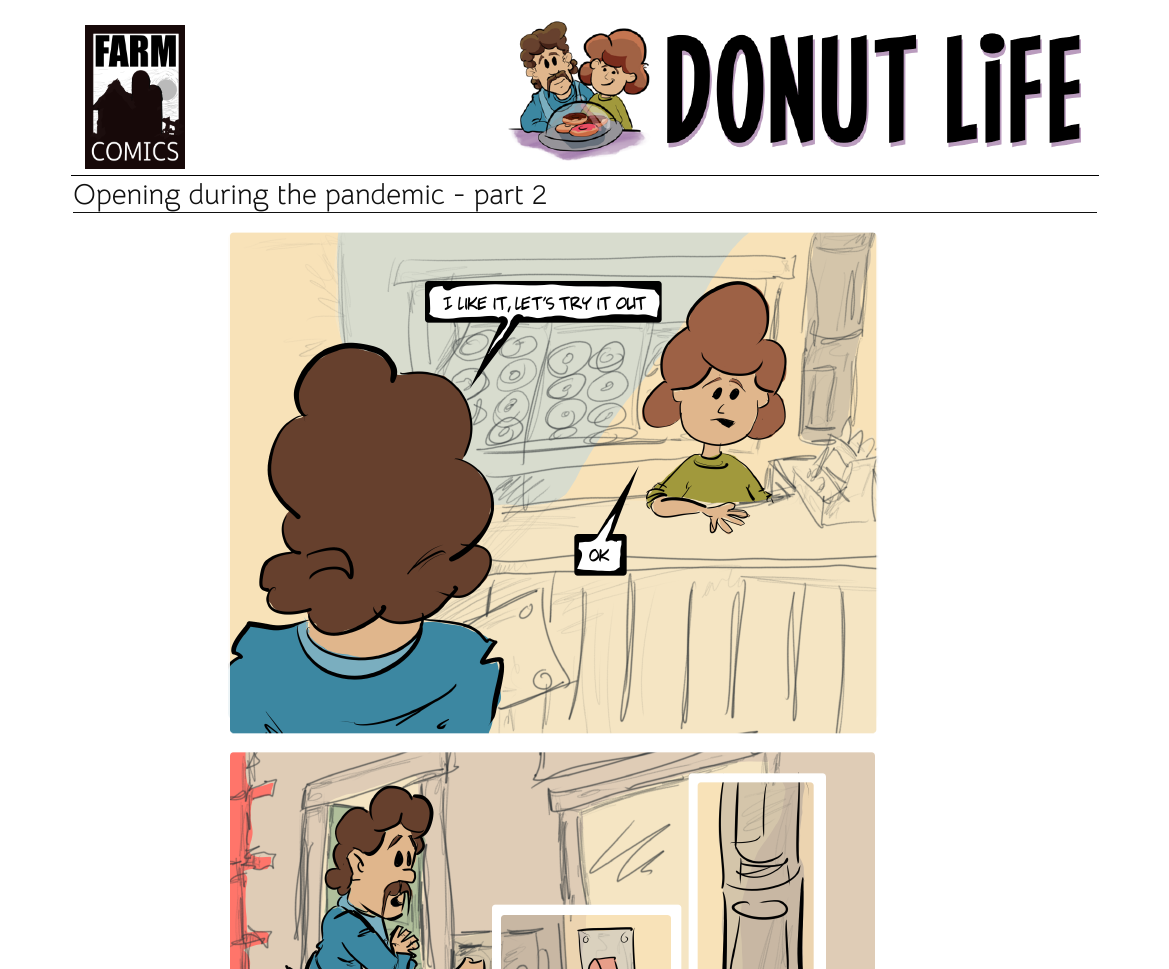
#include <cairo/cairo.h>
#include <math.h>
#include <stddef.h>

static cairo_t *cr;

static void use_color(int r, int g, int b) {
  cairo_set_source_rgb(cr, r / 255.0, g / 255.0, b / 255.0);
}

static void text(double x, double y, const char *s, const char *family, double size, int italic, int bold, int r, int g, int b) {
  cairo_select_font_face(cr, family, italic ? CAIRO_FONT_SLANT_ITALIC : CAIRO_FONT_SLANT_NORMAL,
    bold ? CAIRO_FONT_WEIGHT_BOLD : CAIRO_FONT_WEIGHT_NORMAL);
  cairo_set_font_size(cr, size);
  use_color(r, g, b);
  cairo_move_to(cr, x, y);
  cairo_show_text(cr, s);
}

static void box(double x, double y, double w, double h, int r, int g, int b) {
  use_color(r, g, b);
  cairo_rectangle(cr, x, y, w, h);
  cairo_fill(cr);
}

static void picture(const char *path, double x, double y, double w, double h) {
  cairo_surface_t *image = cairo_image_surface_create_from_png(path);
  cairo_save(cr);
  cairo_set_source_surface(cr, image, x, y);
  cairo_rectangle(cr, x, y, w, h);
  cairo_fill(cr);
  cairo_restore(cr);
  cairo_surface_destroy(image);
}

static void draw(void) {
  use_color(255, 255, 255);
  cairo_paint(cr);
  box(71, 175, 1028, 1, 0, 0, 0);
  picture("img_01.png", 85, 25, 100, 144);
  picture("img_02.png", 508, 21, 573, 140);
  box(73, 212, 1024, 1, 17, 17, 17);
  picture("img_03.png", 228, 232, 651, 737);
  text(73, 204, "Opening during the pandemic - part 2", "Bellota Text", 28.75, 0, 0, 17, 17, 17);
}

int main(void) {
  cairo_surface_t *surface = cairo_image_surface_create(CAIRO_FORMAT_RGB24, 1169, 969);
  cr = cairo_create(surface);
  cairo_font_options_t *options = cairo_font_options_create();
  cairo_font_options_set_hint_metrics(options, CAIRO_HINT_METRICS_OFF);
  cairo_font_options_set_hint_style(options, CAIRO_HINT_STYLE_NONE);
  cairo_set_font_options(cr, options);
  cairo_set_miter_limit(cr, 4);
  draw();
  cairo_surface_write_to_png(surface, "out.png");
  cairo_font_options_destroy(options);
  cairo_destroy(cr);
  cairo_surface_destroy(surface);
  return 0;
}
